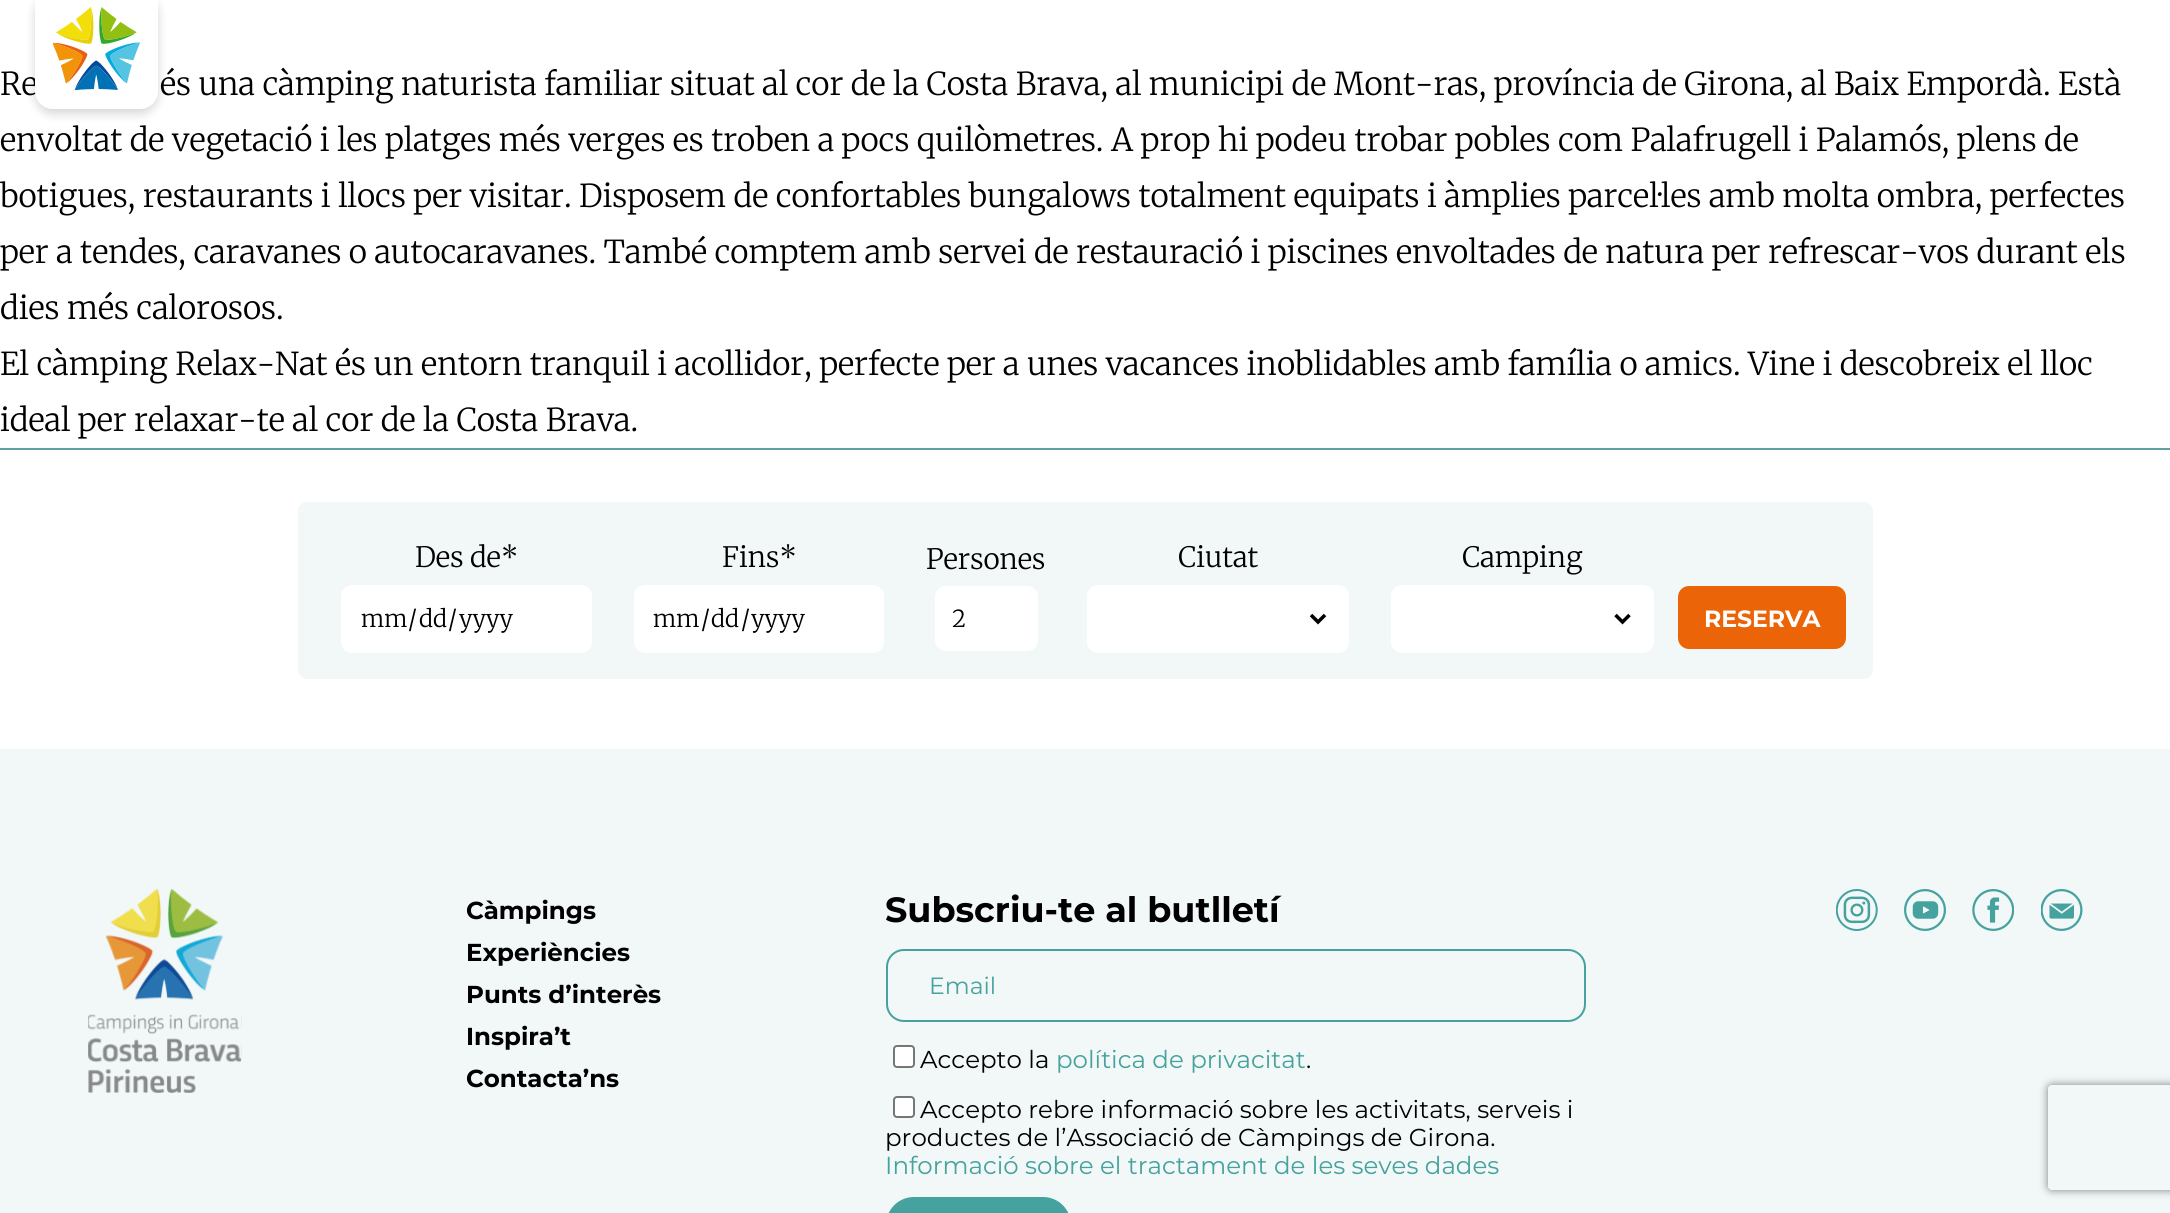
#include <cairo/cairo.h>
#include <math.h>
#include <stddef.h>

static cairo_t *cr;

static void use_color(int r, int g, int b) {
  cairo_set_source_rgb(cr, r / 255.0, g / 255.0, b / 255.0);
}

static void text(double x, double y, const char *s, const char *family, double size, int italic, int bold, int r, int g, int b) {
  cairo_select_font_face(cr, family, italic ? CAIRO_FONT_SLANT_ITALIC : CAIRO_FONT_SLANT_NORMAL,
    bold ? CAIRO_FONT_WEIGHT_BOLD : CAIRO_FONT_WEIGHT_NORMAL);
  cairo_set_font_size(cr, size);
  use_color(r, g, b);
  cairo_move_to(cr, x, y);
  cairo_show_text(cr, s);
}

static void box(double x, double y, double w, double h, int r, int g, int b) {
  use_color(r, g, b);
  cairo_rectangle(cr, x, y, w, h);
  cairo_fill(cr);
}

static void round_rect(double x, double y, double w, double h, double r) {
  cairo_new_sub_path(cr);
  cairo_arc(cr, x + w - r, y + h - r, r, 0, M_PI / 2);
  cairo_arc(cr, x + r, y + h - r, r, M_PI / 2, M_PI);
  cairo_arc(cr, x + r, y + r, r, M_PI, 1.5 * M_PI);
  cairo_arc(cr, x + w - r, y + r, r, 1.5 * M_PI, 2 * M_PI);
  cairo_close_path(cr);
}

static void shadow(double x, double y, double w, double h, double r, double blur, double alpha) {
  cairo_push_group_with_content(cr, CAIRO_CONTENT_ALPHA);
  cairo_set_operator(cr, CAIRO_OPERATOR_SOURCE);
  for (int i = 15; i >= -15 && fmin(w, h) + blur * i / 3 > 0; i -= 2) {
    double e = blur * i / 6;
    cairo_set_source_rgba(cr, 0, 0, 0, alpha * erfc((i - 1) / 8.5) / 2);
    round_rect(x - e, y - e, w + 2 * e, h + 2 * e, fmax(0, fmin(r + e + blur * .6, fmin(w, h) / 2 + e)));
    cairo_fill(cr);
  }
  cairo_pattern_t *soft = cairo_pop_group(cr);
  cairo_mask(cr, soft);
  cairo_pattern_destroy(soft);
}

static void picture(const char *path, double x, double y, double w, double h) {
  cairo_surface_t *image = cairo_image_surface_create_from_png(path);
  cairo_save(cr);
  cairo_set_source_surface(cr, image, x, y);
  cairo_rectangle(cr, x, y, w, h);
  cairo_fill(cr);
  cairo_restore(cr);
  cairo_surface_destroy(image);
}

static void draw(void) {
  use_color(255, 255, 255);
  cairo_paint(cr);
  use_color(0, 0, 0);
  shadow(35, -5, 123, 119, 18, 5, 0.16);
  box(0, 749, 2170, 464, 242, 247, 247);
  box(0, 448, 2170, 2, 97, 160, 158);
  use_color(242, 247, 247);
  round_rect(298, 502, 1575, 177, 9);
  cairo_fill(cr);
  use_color(255, 255, 255);
  round_rect(341, 585, 251, 68, 11);
  cairo_fill(cr);
  round_rect(634, 585, 250, 68, 11);
  cairo_fill(cr);
  round_rect(935, 586, 103, 65, 11);
  cairo_fill(cr);
  round_rect(1087, 585, 262, 68, 11);
  cairo_fill(cr);
  cairo_new_path(cr);
  cairo_move_to(cr, 1311, 615);
  cairo_line_to(cr, 1318, 622);
  cairo_line_to(cr, 1325, 615);
  use_color(0, 0, 0);
  cairo_set_line_width(cr, 3.5);
  cairo_stroke(cr);
  use_color(255, 255, 255);
  round_rect(1391, 585, 263, 68, 11);
  cairo_fill(cr);
  cairo_new_path(cr);
  cairo_move_to(cr, 1615.5, 615);
  cairo_line_to(cr, 1622.5, 622);
  cairo_line_to(cr, 1629.5, 615);
  use_color(0, 0, 0);
  cairo_stroke(cr);
  use_color(236, 100, 8);
  round_rect(1678, 586, 168, 63, 11);
  cairo_fill(cr);
  picture("img_02.png", 88, 889, 154, 204);
  round_rect(887, 950, 698, 71, 17);
  use_color(69, 162, 158);
  cairo_set_line_width(cr, 2);
  cairo_stroke(cr);
  use_color(255, 255, 255);
  round_rect(894, 1046, 20, 21, 3);
  cairo_fill_preserve(cr);
  use_color(118, 118, 118);
  cairo_stroke(cr);
  use_color(255, 255, 255);
  round_rect(894, 1097, 20, 20, 3);
  cairo_fill_preserve(cr);
  use_color(118, 118, 118);
  cairo_stroke(cr);
  use_color(69, 162, 158);
  round_rect(886, 1197, 185, 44, 28);
  cairo_fill(cr);
  picture("img_03.png", 1836, 889, 42, 42);
  picture("img_04.png", 1904, 889, 42, 42);
  picture("img_05.png", 1972, 889, 42, 42);
  picture("img_06.png", 2041, 889, 42, 42);
  cairo_save(cr);
  cairo_set_fill_rule(cr, CAIRO_FILL_RULE_EVEN_ODD);
  cairo_new_path(cr);
  cairo_move_to(cr, 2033, 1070);
  cairo_line_to(cr, 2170, 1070);
  cairo_line_to(cr, 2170, 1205);
  cairo_line_to(cr, 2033, 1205);
  cairo_close_path(cr);
  cairo_move_to(cr, 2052, 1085);
  cairo_line_to(cr, 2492, 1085);
  cairo_curve_to(cr, 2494, 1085, 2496, 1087, 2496, 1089);
  cairo_line_to(cr, 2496, 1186);
  cairo_curve_to(cr, 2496, 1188, 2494, 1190, 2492, 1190);
  cairo_line_to(cr, 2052, 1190);
  cairo_curve_to(cr, 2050, 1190, 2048, 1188, 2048, 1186);
  cairo_line_to(cr, 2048, 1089);
  cairo_curve_to(cr, 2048, 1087, 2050, 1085, 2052, 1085);
  cairo_close_path(cr);
  cairo_clip(cr);
  use_color(128, 128, 128);
  shadow(2048, 1085, 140, 105, 4, 4.5, 1);
  cairo_restore(cr);
  text(0, 95, "Re", "Merriweather Light", 31.5, 0, 0, 0, 0, 0);
  use_color(255, 255, 255);
  cairo_new_path(cr);
  cairo_move_to(cr, 35, -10);
  cairo_line_to(cr, 158, -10);
  cairo_line_to(cr, 158, 91);
  cairo_curve_to(cr, 158, 101, 150, 109, 140, 109);
  cairo_line_to(cr, 53, 109);
  cairo_curve_to(cr, 43, 109, 35, 101, 35, 91);
  cairo_close_path(cr);
  cairo_fill(cr);
  picture("img_01.png", 53, 7, 87, 83);
  text(160, 95, "és una càmping naturista familiar situat al cor de la Costa Brava, al municipi de Mont-ras, província de Girona, al Baix Empordà. Està", "Merriweather Light", 31.5, 0, 0, 0, 0, 0);
  text(0, 151, "envoltat de vegetació i les platges més verges es troben a pocs quilòmetres. A prop hi podeu trobar pobles com Palafrugell i Palamós, plens de", "Merriweather Light", 31.5, 0, 0, 0, 0, 0);
  text(0, 207, "botigues, restaurants i llocs per visitar. Disposem de confortables bungalows totalment equipats i àmplies parcel·les amb molta ombra, perfectes", "Merriweather Light", 31.5, 0, 0, 0, 0, 0);
  text(0, 263, "per a tendes, caravanes o autocaravanes. També comptem amb servei de restauració i piscines envoltades de natura per refrescar-vos durant els", "Merriweather Light", 31.5, 0, 0, 0, 0, 0);
  text(0, 319, "dies més calorosos.", "Merriweather Light", 31.5, 0, 0, 0, 0, 0);
  text(0, 375, "El càmping Relax-Nat és un entorn tranquil i acollidor, perfecte per a unes vacances inoblidables amb família o amics. Vine i descobreix el lloc", "Merriweather Light", 31.5, 0, 0, 0, 0, 0);
  text(0, 431, "ideal per relaxar-te al cor de la Costa Brava.", "Merriweather Light", 31.5, 0, 0, 0, 0, 0);
  text(415, 567, "Des de*", "Merriweather Light", 28, 0, 0, 0, 0, 0);
  text(361, 627, "mm", "Merriweather Light", 23.5, 0, 0, 0, 0, 0);
  text(408, 627, "/", "Merriweather Light", 23.5, 0, 0, 0, 0, 0);
  text(419, 627, "dd", "Merriweather Light", 23.5, 0, 0, 0, 0, 0);
  text(448, 627, "/", "Merriweather Light", 23.5, 0, 0, 0, 0, 0);
  text(459, 627, "yyyy", "Merriweather Light", 23.5, 0, 0, 0, 0, 0);
  text(722, 567, "Fins*", "Merriweather Light", 28, 0, 0, 0, 0, 0);
  text(653, 627, "mm", "Merriweather Light", 23.5, 0, 0, 0, 0, 0);
  text(701, 627, "/", "Merriweather Light", 23.5, 0, 0, 0, 0, 0);
  text(711, 627, "dd", "Merriweather Light", 23.5, 0, 0, 0, 0, 0);
  text(741, 627, "/", "Merriweather Light", 23.5, 0, 0, 0, 0, 0);
  text(751, 627, "yyyy", "Merriweather Light", 23.5, 0, 0, 0, 0, 0);
  text(926, 569, "Persones", "Merriweather Light", 28, 0, 0, 0, 0, 0);
  text(952, 627, "2", "Merriweather Light", 23.5, 0, 0, 0, 0, 0);
  text(1178, 567, "Ciutat", "Merriweather Light", 28, 0, 0, 0, 0, 0);
  text(1462, 567, "Camping", "Merriweather Light", 28, 0, 0, 0, 0, 0);
  text(1704, 627, "RESERVA", "Montserrat", 23.5, 0, 1, 255, 255, 255);
  text(466, 919, "Càmpings", "Montserrat", 24.5, 0, 1, 0, 0, 0);
  text(466, 961, "Experiències", "Montserrat", 24.5, 0, 1, 0, 0, 0);
  text(466, 1003, "Punts d’interès", "Montserrat", 24.5, 0, 1, 0, 0, 0);
  text(466, 1045, "Inspira’t", "Montserrat", 24.5, 0, 1, 0, 0, 0);
  text(466, 1087, "Contacta’ns", "Montserrat", 24.5, 0, 1, 0, 0, 0);
  text(885, 922, "Subscriu-te al butlletí", "Montserrat", 35, 0, 1, 0, 0, 0);
  text(929, 994, "Email", "Montserrat", 23.5, 0, 0, 69, 162, 158);
  text(920, 1068, "Accepto la", "Montserrat", 24.5, 0, 0, 0, 0, 0);
  text(1056, 1068, "política de privacitat", "Montserrat", 24.5, 0, 0, 69, 162, 158);
  text(1306, 1068, ".", "Montserrat", 24.5, 0, 0, 0, 0, 0);
  text(920, 1118, "Accepto rebre informació sobre les activitats, serveis i", "Montserrat", 24.5, 0, 0, 0, 0, 0);
  text(885, 1146, "productes de l’Associació de Càmpings de Girona.", "Montserrat", 24.5, 0, 0, 0, 0, 0);
  text(885, 1174, "Informació sobre el tractament de les seves dades", "Montserrat", 24.5, 0, 0, 69, 162, 158);
}

int main(void) {
  cairo_surface_t *surface = cairo_image_surface_create(CAIRO_FORMAT_RGB24, 2170, 1213);
  cr = cairo_create(surface);
  cairo_font_options_t *options = cairo_font_options_create();
  cairo_font_options_set_hint_metrics(options, CAIRO_HINT_METRICS_OFF);
  cairo_font_options_set_hint_style(options, CAIRO_HINT_STYLE_NONE);
  cairo_set_font_options(cr, options);
  cairo_set_miter_limit(cr, 4);
  draw();
  cairo_surface_write_to_png(surface, "out.png");
  cairo_font_options_destroy(options);
  cairo_destroy(cr);
  cairo_surface_destroy(surface);
  return 0;
}
